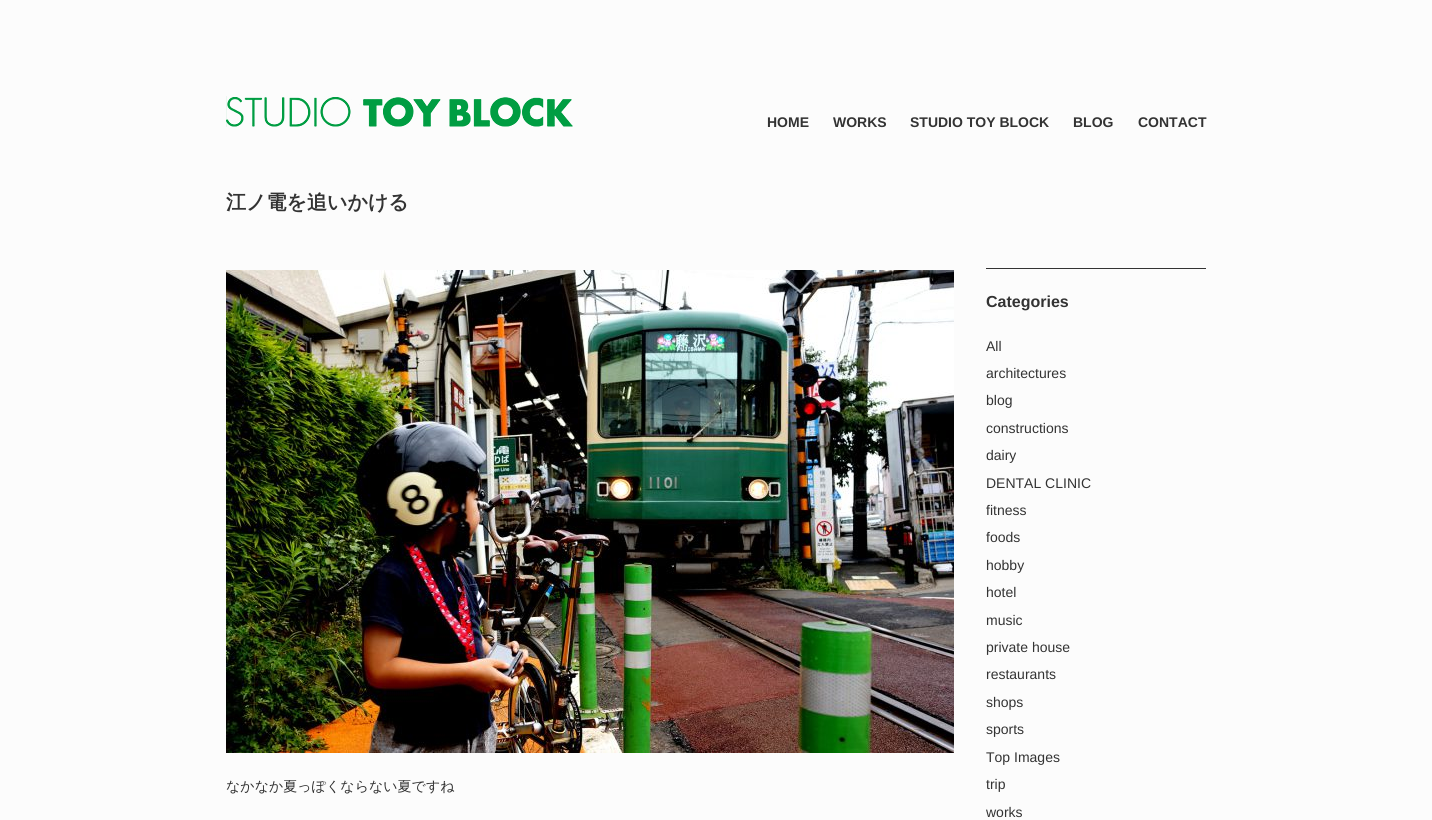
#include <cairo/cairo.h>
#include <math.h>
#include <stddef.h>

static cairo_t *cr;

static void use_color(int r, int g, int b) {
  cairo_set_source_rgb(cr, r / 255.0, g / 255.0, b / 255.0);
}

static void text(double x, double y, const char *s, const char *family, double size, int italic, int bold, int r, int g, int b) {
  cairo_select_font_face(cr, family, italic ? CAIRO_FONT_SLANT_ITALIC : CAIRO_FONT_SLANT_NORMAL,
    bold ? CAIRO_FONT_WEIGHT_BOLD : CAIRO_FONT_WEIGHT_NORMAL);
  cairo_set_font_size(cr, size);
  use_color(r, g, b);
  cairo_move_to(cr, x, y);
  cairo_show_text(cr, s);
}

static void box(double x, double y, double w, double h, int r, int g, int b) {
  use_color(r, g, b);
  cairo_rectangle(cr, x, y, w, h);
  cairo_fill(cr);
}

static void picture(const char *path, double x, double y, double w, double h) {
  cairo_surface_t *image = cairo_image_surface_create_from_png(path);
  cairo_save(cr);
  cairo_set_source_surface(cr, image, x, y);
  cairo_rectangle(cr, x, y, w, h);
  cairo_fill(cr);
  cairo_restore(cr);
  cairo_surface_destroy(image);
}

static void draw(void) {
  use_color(252, 252, 252);
  cairo_paint(cr);
  picture("img_01.png", 226, 96, 347, 31);
  picture("img_02.png", 226, 270, 728, 483);
  box(986, 268, 220, 1, 51, 51, 51);
  text(767, 127, "HOME", "Liberation Sans", 14, 0, 1, 51, 51, 51);
  text(833, 127, "WORKS", "Liberation Sans", 14, 0, 1, 51, 51, 51);
  text(910, 127, "STUDIO TOY BLOCK", "Liberation Sans", 14, 0, 1, 51, 51, 51);
  text(1073, 127, "BLOG", "Liberation Sans", 14, 0, 1, 51, 51, 51);
  text(1138, 127, "CONTACT", "Liberation Sans", 14, 0, 1, 51, 51, 51);
  text(226, 209, "江ノ電を追いかける", "WenQuanYi Zen Hei", 20, 0, 1, 51, 51, 51);
  text(226, 791, "なかなか夏っぽくならない夏ですね", "WenQuanYi Zen Hei Medium", 14, 0, 0, 51, 51, 51);
  text(986, 307, "Categories", "Liberation Sans", 16, 0, 1, 51, 51, 51);
  text(986, 351, "All", "Liberation Sans", 14, 0, 0, 51, 51, 51);
  text(986, 378, "architectures", "Liberation Sans", 14, 0, 0, 51, 51, 51);
  text(986, 405, "blog", "Liberation Sans", 14, 0, 0, 51, 51, 51);
  text(986, 433, "constructions", "Liberation Sans", 14, 0, 0, 51, 51, 51);
  text(986, 460, "dairy", "Liberation Sans", 14, 0, 0, 51, 51, 51);
  text(986, 488, "DENTAL CLINIC", "Liberation Sans", 14, 0, 0, 51, 51, 51);
  text(986, 515, "fitness", "Liberation Sans", 14, 0, 0, 51, 51, 51);
  text(986, 542, "foods", "Liberation Sans", 14, 0, 0, 51, 51, 51);
  text(986, 570, "hobby", "Liberation Sans", 14, 0, 0, 51, 51, 51);
  text(986, 597, "hotel", "Liberation Sans", 14, 0, 0, 51, 51, 51);
  text(986, 625, "music", "Liberation Sans", 14, 0, 0, 51, 51, 51);
  text(986, 652, "private house", "Liberation Sans", 14, 0, 0, 51, 51, 51);
  text(986, 679, "restaurants", "Liberation Sans", 14, 0, 0, 51, 51, 51);
  text(986, 707, "shops", "Liberation Sans", 14, 0, 0, 51, 51, 51);
  text(986, 734, "sports", "Liberation Sans", 14, 0, 0, 51, 51, 51);
  text(986, 762, "Top Images", "Liberation Sans", 14, 0, 0, 51, 51, 51);
  text(986, 789, "trip", "Liberation Sans", 14, 0, 0, 51, 51, 51);
  text(986, 817, "works", "Liberation Sans", 14, 0, 0, 51, 51, 51);
}

int main(void) {
  cairo_surface_t *surface = cairo_image_surface_create(CAIRO_FORMAT_RGB24, 1432, 820);
  cr = cairo_create(surface);
  cairo_font_options_t *options = cairo_font_options_create();
  cairo_font_options_set_hint_metrics(options, CAIRO_HINT_METRICS_OFF);
  cairo_font_options_set_hint_style(options, CAIRO_HINT_STYLE_NONE);
  cairo_set_font_options(cr, options);
  cairo_set_miter_limit(cr, 4);
  draw();
  cairo_surface_write_to_png(surface, "out.png");
  cairo_font_options_destroy(options);
  cairo_destroy(cr);
  cairo_surface_destroy(surface);
  return 0;
}
